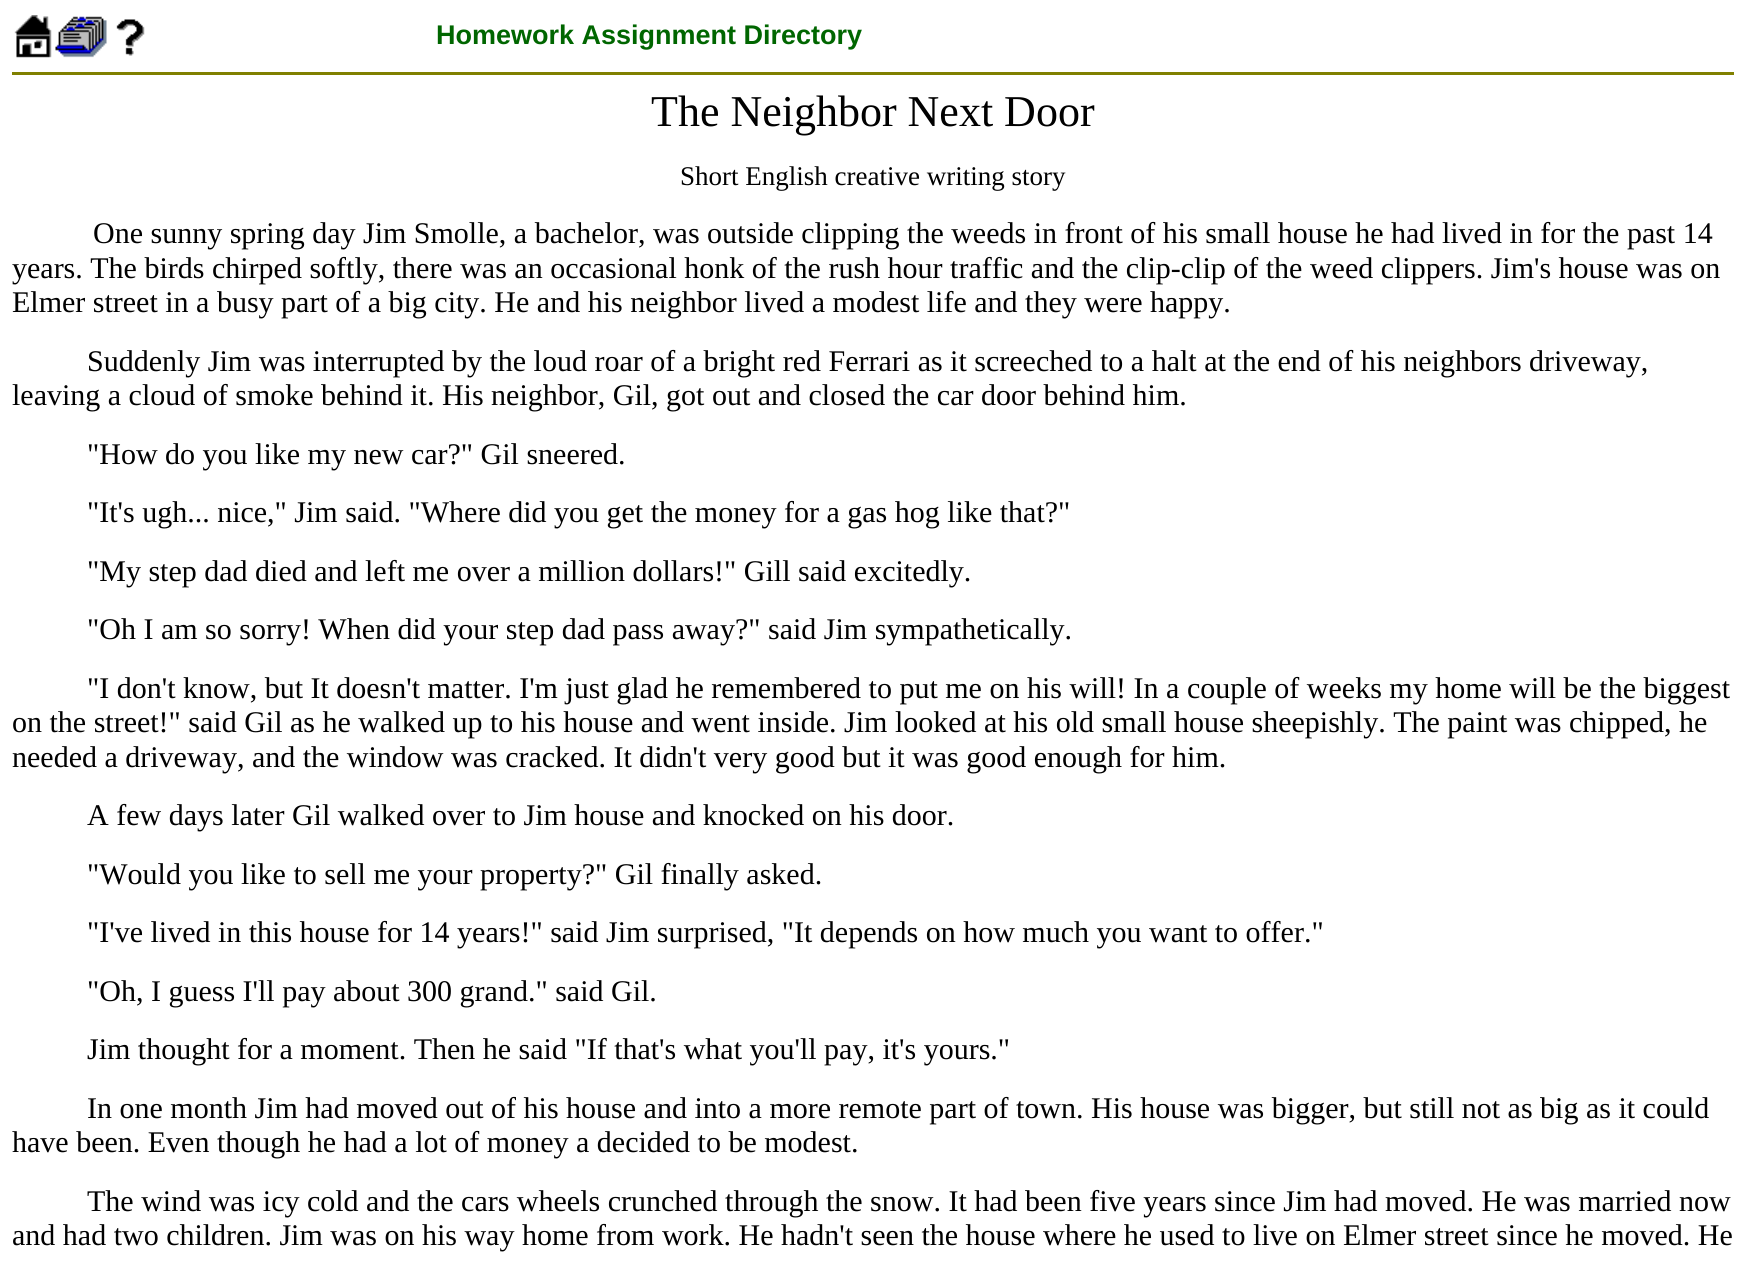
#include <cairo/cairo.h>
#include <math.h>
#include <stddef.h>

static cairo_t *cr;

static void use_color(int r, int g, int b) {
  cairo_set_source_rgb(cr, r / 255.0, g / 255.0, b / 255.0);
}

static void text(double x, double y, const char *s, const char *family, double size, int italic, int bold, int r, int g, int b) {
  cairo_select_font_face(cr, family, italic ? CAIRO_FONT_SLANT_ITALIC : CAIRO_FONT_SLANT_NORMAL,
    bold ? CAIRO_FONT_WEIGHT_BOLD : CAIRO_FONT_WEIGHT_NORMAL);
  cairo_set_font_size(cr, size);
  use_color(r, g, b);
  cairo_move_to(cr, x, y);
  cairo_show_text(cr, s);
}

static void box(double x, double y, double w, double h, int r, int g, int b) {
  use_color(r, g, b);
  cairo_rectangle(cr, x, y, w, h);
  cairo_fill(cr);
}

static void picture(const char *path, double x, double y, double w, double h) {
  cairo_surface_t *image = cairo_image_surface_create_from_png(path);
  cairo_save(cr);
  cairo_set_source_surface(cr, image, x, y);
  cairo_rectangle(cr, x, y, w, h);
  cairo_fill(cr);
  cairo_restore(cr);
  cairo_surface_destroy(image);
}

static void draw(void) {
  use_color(255, 255, 255);
  cairo_paint(cr);
  picture("img_01.png", 14, 15, 38, 43);
  picture("img_02.png", 55, 16, 52, 42);
  picture("img_03.png", 116, 19, 29, 37);
  box(12, 72, 1722, 3, 128, 128, 0);
  text(436, 44, "Homework Assignment Directory", "Liberation Sans", 27, 0, 1, 0, 102, 0);
  text(651, 126, "The Neighbor Next Door", "Liberation Serif", 44, 0, 0, 0, 0, 0);
  text(680, 185, "Short English creative writing story", "Liberation Serif", 27, 0, 0, 0, 0, 0);
  text(93, 243, "One sunny spring day Jim Smolle, a bachelor, was outside clipping the weeds in front of his small house he had lived in for the past 14", "Liberation Serif", 30, 0, 0, 0, 0, 0);
  text(12, 278, "years. The birds chirped softly, there was an occasional honk of the rush hour traffic and the clip-clip of the weed clippers. Jim's house was on", "Liberation Serif", 30, 0, 0, 0, 0, 0);
  text(12, 312, "Elmer street in a busy part of a big city. He and his neighbor lived a modest life and they were happy.", "Liberation Serif", 30, 0, 0, 0, 0, 0);
  text(87, 371, "Suddenly Jim was interrupted by the loud roar of a bright red Ferrari as it screeched to a halt at the end of his neighbors driveway,", "Liberation Serif", 30, 0, 0, 0, 0, 0);
  text(12, 405, "leaving a cloud of smoke behind it. His neighbor, Gil, got out and closed the car door behind him.", "Liberation Serif", 30, 0, 0, 0, 0, 0);
  text(87, 464, "\"How do you like my new car?\" Gil sneered.", "Liberation Serif", 30, 0, 0, 0, 0, 0);
  text(87, 522, "\"It's ugh... nice,\" Jim said. \"Where did you get the money for a gas hog like that?\"", "Liberation Serif", 30, 0, 0, 0, 0, 0);
  text(87, 581, "\"My step dad died and left me over a million dollars!\" Gill said excitedly.", "Liberation Serif", 30, 0, 0, 0, 0, 0);
  text(87, 639, "\"Oh I am so sorry! When did your step dad pass away?\" said Jim sympathetically.", "Liberation Serif", 30, 0, 0, 0, 0, 0);
  text(87, 698, "\"I don't know, but It doesn't matter. I'm just glad he remembered to put me on his will! In a couple of weeks my home will be the biggest", "Liberation Serif", 30, 0, 0, 0, 0, 0);
  text(12, 732, "on the street!\" said Gil as he walked up to his house and went inside. Jim looked at his old small house sheepishly. The paint was chipped, he", "Liberation Serif", 30, 0, 0, 0, 0, 0);
  text(12, 767, "needed a driveway, and the window was cracked. It didn't very good but it was good enough for him.", "Liberation Serif", 30, 0, 0, 0, 0, 0);
  text(87, 825, "A few days later Gil walked over to Jim house and knocked on his door.", "Liberation Serif", 30, 0, 0, 0, 0, 0);
  text(87, 884, "\"Would you like to sell me your property?\" Gil finally asked.", "Liberation Serif", 30, 0, 0, 0, 0, 0);
  text(87, 942, "\"I've lived in this house for 14 years!\" said Jim surprised, \"It depends on how much you want to offer.\"", "Liberation Serif", 30, 0, 0, 0, 0, 0);
  text(87, 1001, "\"Oh, I guess I'll pay about 300 grand.\" said Gil.", "Liberation Serif", 30, 0, 0, 0, 0, 0);
  text(87, 1059, "Jim thought for a moment. Then he said \"If that's what you'll pay, it's yours.\"", "Liberation Serif", 30, 0, 0, 0, 0, 0);
  text(87, 1118, "In one month Jim had moved out of his house and into a more remote part of town. His house was bigger, but still not as big as it could", "Liberation Serif", 30, 0, 0, 0, 0, 0);
  text(12, 1152, "have been. Even though he had a lot of money a decided to be modest.", "Liberation Serif", 30, 0, 0, 0, 0, 0);
  text(87, 1211, "The wind was icy cold and the cars wheels crunched through the snow. It had been five years since Jim had moved. He was married now", "Liberation Serif", 30, 0, 0, 0, 0, 0);
  text(12, 1245, "and had two children. Jim was on his way home from work. He hadn't seen the house where he used to live on Elmer street since he moved. He", "Liberation Serif", 30, 0, 0, 0, 0, 0);
}

int main(void) {
  cairo_surface_t *surface = cairo_image_surface_create(CAIRO_FORMAT_RGB24, 1746, 1267);
  cr = cairo_create(surface);
  cairo_font_options_t *options = cairo_font_options_create();
  cairo_font_options_set_hint_metrics(options, CAIRO_HINT_METRICS_OFF);
  cairo_font_options_set_hint_style(options, CAIRO_HINT_STYLE_NONE);
  cairo_set_font_options(cr, options);
  cairo_set_miter_limit(cr, 4);
  draw();
  cairo_surface_write_to_png(surface, "out.png");
  cairo_font_options_destroy(options);
  cairo_destroy(cr);
  cairo_surface_destroy(surface);
  return 0;
}
